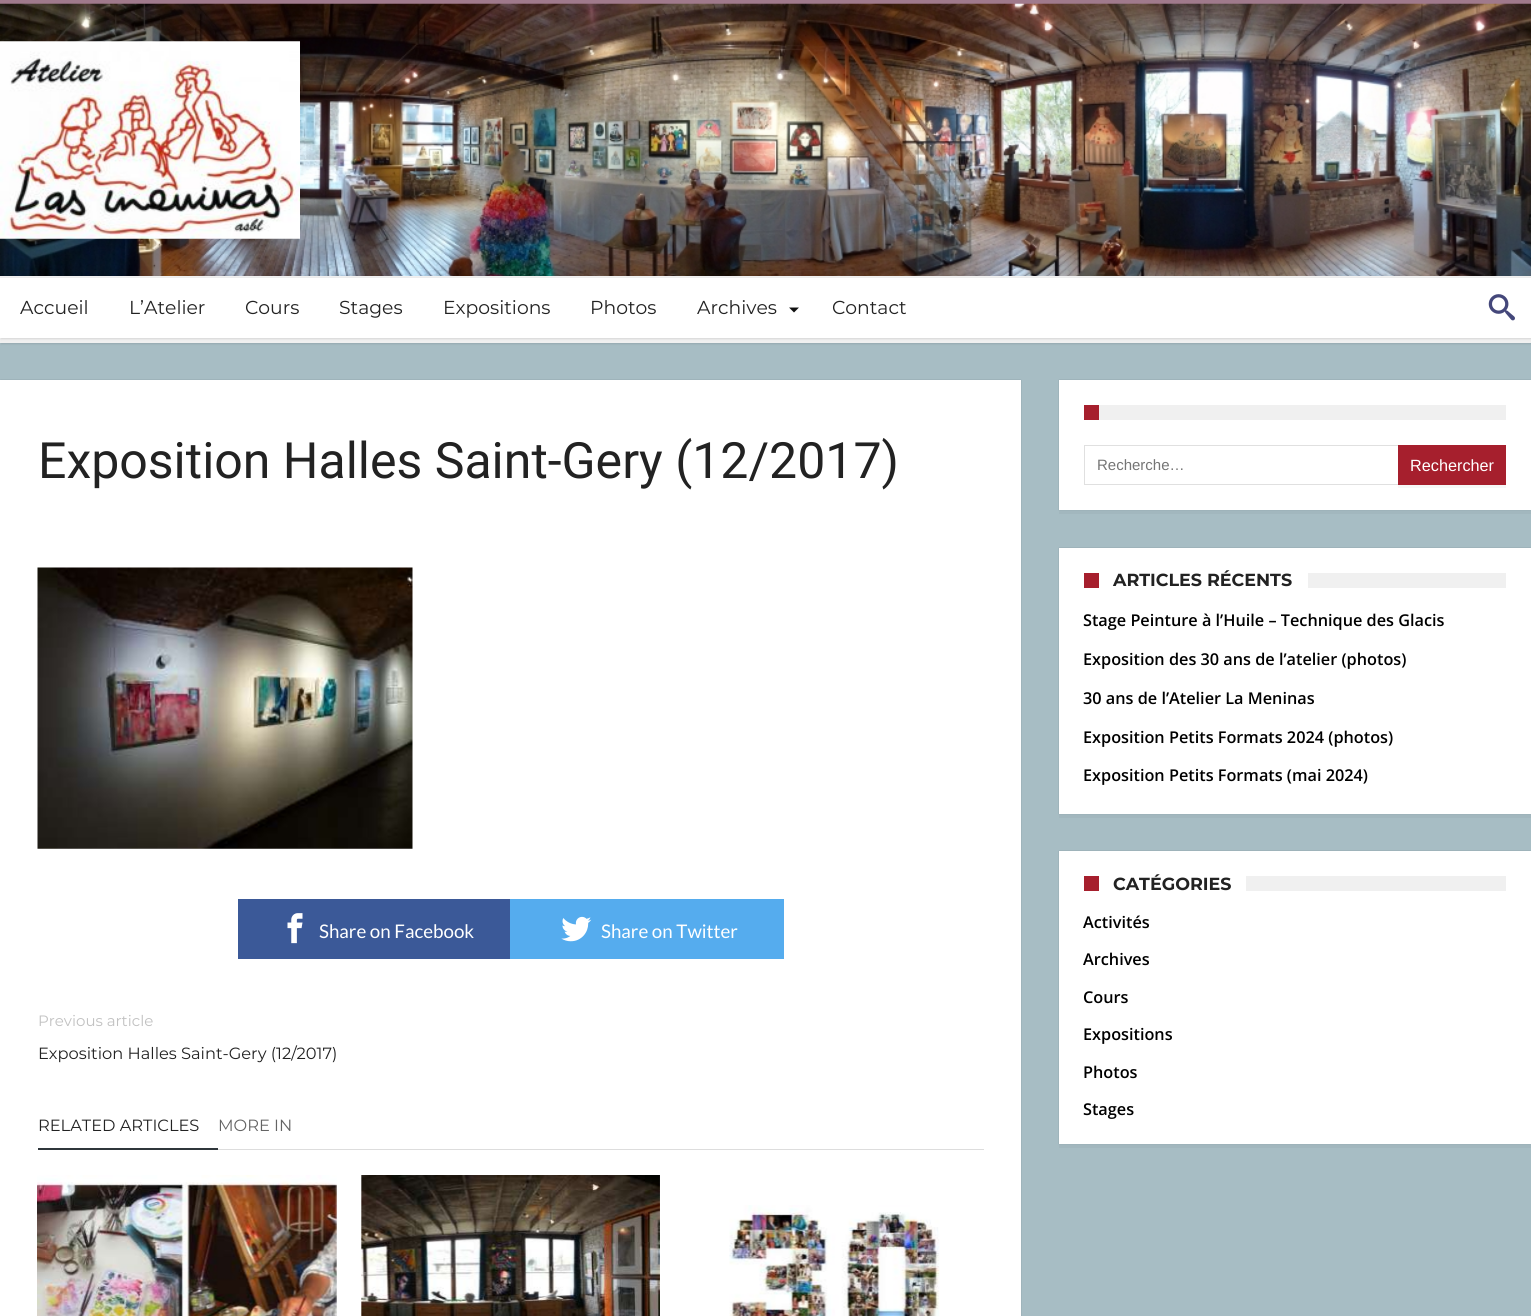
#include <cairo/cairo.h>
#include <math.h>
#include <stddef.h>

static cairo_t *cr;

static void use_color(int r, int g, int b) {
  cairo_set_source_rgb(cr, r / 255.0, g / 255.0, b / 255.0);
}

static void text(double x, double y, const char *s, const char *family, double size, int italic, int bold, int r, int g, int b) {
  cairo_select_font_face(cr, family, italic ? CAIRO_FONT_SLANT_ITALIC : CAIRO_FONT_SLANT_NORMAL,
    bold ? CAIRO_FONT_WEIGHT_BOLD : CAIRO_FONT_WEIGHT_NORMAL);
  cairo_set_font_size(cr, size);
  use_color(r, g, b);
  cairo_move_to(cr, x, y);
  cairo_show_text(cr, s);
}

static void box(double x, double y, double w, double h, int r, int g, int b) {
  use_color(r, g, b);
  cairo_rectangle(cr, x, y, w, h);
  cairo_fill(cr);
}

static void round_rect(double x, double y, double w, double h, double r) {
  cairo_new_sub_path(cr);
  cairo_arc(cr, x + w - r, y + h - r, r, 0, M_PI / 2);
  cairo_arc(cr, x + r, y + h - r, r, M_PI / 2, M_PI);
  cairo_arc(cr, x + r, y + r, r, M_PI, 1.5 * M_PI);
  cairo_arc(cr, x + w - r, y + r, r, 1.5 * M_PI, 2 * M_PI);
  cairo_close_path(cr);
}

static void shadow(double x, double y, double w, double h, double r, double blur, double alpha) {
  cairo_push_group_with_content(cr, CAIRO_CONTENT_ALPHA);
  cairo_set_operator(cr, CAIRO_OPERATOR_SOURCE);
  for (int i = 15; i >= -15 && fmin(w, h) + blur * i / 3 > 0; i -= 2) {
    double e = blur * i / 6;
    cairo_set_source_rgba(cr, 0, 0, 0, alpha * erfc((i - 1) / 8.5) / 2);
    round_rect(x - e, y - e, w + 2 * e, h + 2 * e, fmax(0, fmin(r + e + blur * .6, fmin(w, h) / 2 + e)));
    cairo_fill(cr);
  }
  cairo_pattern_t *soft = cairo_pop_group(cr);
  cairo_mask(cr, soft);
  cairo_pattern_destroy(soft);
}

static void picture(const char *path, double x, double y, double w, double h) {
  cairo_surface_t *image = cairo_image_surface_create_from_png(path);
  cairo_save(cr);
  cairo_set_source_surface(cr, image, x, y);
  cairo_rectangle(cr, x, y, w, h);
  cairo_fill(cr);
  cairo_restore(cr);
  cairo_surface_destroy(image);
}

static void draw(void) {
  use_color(167, 189, 196);
  cairo_paint(cr);
  box(0, 0, 1531, 4, 160, 122, 140);
  picture("img_01.png", 0, 3, 1531, 273);
  picture("img_02.png", 0, 41, 300, 198);
  use_color(0, 0, 0);
  shadow(1, 278, 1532, 66, 0, 1, 0.11);
  box(0, 276, 1531, 67, 240, 240, 240);
  use_color(0, 0, 0);
  shadow(1, 279, 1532, 60, 0, 1, 0.11);
  box(0, 278, 1531, 60, 255, 255, 255);
  use_color(17, 17, 17);
  cairo_new_path(cr);
  cairo_move_to(cr, 789, 307.5);
  cairo_line_to(cr, 799, 307.5);
  cairo_line_to(cr, 794, 312.5);
  cairo_close_path(cr);
  cairo_fill(cr);
  picture("img_03.png", 1488, 294, 27, 27);
  use_color(0, 0, 0);
  shadow(0, 380, 1021, 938, 0, 0.5, 0.2);
  box(0, 380, 1021, 936, 255, 255, 255);
  picture("img_04.png", 37, 567, 376, 282);
  box(238, 899, 272, 60, 59, 89, 152);
  picture("img_05.png", 287, 913, 16, 31);
  box(510, 899, 274, 60, 85, 172, 238);
  picture("img_06.png", 561, 916, 31, 26);
  box(218, 1149, 766, 1, 221, 221, 221);
  box(38, 1148, 180, 2, 47, 54, 59);
  picture("img_07.png", 37, 1175, 300, 141);
  picture("img_08.png", 361, 1175, 299, 141);
  picture("img_09.png", 729, 1205, 211, 111);
  use_color(0, 0, 0);
  shadow(1059, 380, 472, 130, 0, 0.5, 0.2);
  box(1059, 380, 472, 130, 255, 255, 255);
  box(1099, 405, 407, 15, 240, 240, 240);
  box(1084, 405, 15, 15, 166, 31, 45);
  cairo_rectangle(cr, 1084.5, 445.5, 421, 39);
  use_color(224, 224, 224);
  cairo_set_line_width(cr, 1);
  cairo_stroke(cr);
  box(1398, 485, 108, 3, 247, 247, 247);
  box(1398, 445, 108, 40, 166, 31, 45);
  box(1059, 511, 472, 3, 162, 183, 190);
  use_color(0, 0, 0);
  shadow(1059, 548, 472, 266, 0, 0.5, 0.2);
  box(1059, 548, 472, 266, 255, 255, 255);
  box(1308, 573, 198, 15, 240, 240, 240);
  box(1084, 573, 15, 15, 166, 31, 45);
  box(1059, 815, 472, 3, 162, 183, 190);
  use_color(0, 0, 0);
  shadow(1059, 851, 472, 293, 0, 0.5, 0.2);
  box(1059, 851, 472, 293, 255, 255, 255);
  box(1246, 876, 260, 15, 240, 240, 240);
  box(1084, 876, 15, 15, 166, 31, 45);
  box(1059, 1145, 472, 3, 162, 183, 190);
  text(20, 314, "Accueil", "Montserrat", 18.75, 0, 0, 34, 34, 34);
  text(129, 314, "L’Atelier", "Montserrat", 18.75, 0, 0, 34, 34, 34);
  text(245, 314, "Cours", "Montserrat", 18.75, 0, 0, 34, 34, 34);
  text(339, 314, "Stages", "Montserrat", 18.75, 0, 0, 34, 34, 34);
  text(443, 314, "Expositions", "Montserrat", 18.75, 0, 0, 34, 34, 34);
  text(590, 314, "Photos", "Montserrat", 18.75, 0, 0, 34, 34, 34);
  text(697, 314, "Archives", "Montserrat", 18.75, 0, 0, 34, 34, 34);
  text(832, 314, "Contact", "Montserrat", 18.75, 0, 0, 34, 34, 34);
  text(38, 478, "Exposition Halles Saint-Gery (12/2017)", "Roboto", 50, 0, 0, 34, 34, 34);
  text(319, 938, "Share on Facebook", "Lato", 18.75, 0, 0, 255, 255, 255);
  text(601, 938, "Share on Twitter", "Lato", 18.75, 0, 0, 255, 255, 255);
  text(38, 1026, "Previous article", "Montserrat", 15, 0, 0, 193, 193, 193);
  text(38, 1059, "Exposition Halles Saint-Gery (12/2017)", "Montserrat", 16.25, 0, 0, 34, 34, 34);
  text(38, 1131, "RELATED ARTICLES", "Montserrat", 16.25, 0, 0, 34, 34, 34);
  text(218, 1131, "MORE IN", "Montserrat", 16.25, 0, 0, 100, 100, 100);
  text(1097, 470, "Recherche…", "Liberation Sans", 15, 0, 0, 117, 117, 117);
  text(1410, 471, "Rechercher", "Liberation Sans", 16.25, 0, 0, 255, 255, 255);
  text(1113, 586, "ARTICLES RÉCENTS", "Montserrat", 17.5, 0, 1, 34, 34, 34);
  text(1083, 626, "Stage Peinture à l’Huile – Technique des Glacis", "Open Sans SemiBold", 16.25, 0, 0, 0, 0, 0);
  text(1083, 665, "Exposition des 30 ans de l’atelier (photos)", "Open Sans SemiBold", 16.25, 0, 0, 0, 0, 0);
  text(1083, 704, "30 ans de l’Atelier La Meninas", "Open Sans SemiBold", 16.25, 0, 0, 0, 0, 0);
  text(1083, 743, "Exposition Petits Formats 2024 (photos)", "Open Sans SemiBold", 16.25, 0, 0, 0, 0, 0);
  text(1083, 781, "Exposition Petits Formats (mai 2024)", "Open Sans SemiBold", 16.25, 0, 0, 0, 0, 0);
  text(1113, 890, "CATÉGORIES", "Montserrat", 17.5, 0, 1, 34, 34, 34);
  text(1083, 928, "Activités", "Open Sans SemiBold", 16.25, 0, 0, 0, 0, 0);
  text(1083, 965, "Archives", "Open Sans SemiBold", 16.25, 0, 0, 0, 0, 0);
  text(1083, 1003, "Cours", "Open Sans SemiBold", 16.25, 0, 0, 0, 0, 0);
  text(1083, 1040, "Expositions", "Open Sans SemiBold", 16.25, 0, 0, 0, 0, 0);
  text(1083, 1078, "Photos", "Open Sans SemiBold", 16.25, 0, 0, 0, 0, 0);
  text(1083, 1115, "Stages", "Open Sans SemiBold", 16.25, 0, 0, 0, 0, 0);
}

int main(void) {
  cairo_surface_t *surface = cairo_image_surface_create(CAIRO_FORMAT_RGB24, 1531, 1316);
  cr = cairo_create(surface);
  cairo_font_options_t *options = cairo_font_options_create();
  cairo_font_options_set_hint_metrics(options, CAIRO_HINT_METRICS_OFF);
  cairo_font_options_set_hint_style(options, CAIRO_HINT_STYLE_NONE);
  cairo_set_font_options(cr, options);
  cairo_set_miter_limit(cr, 4);
  draw();
  cairo_surface_write_to_png(surface, "out.png");
  cairo_font_options_destroy(options);
  cairo_destroy(cr);
  cairo_surface_destroy(surface);
  return 0;
}
